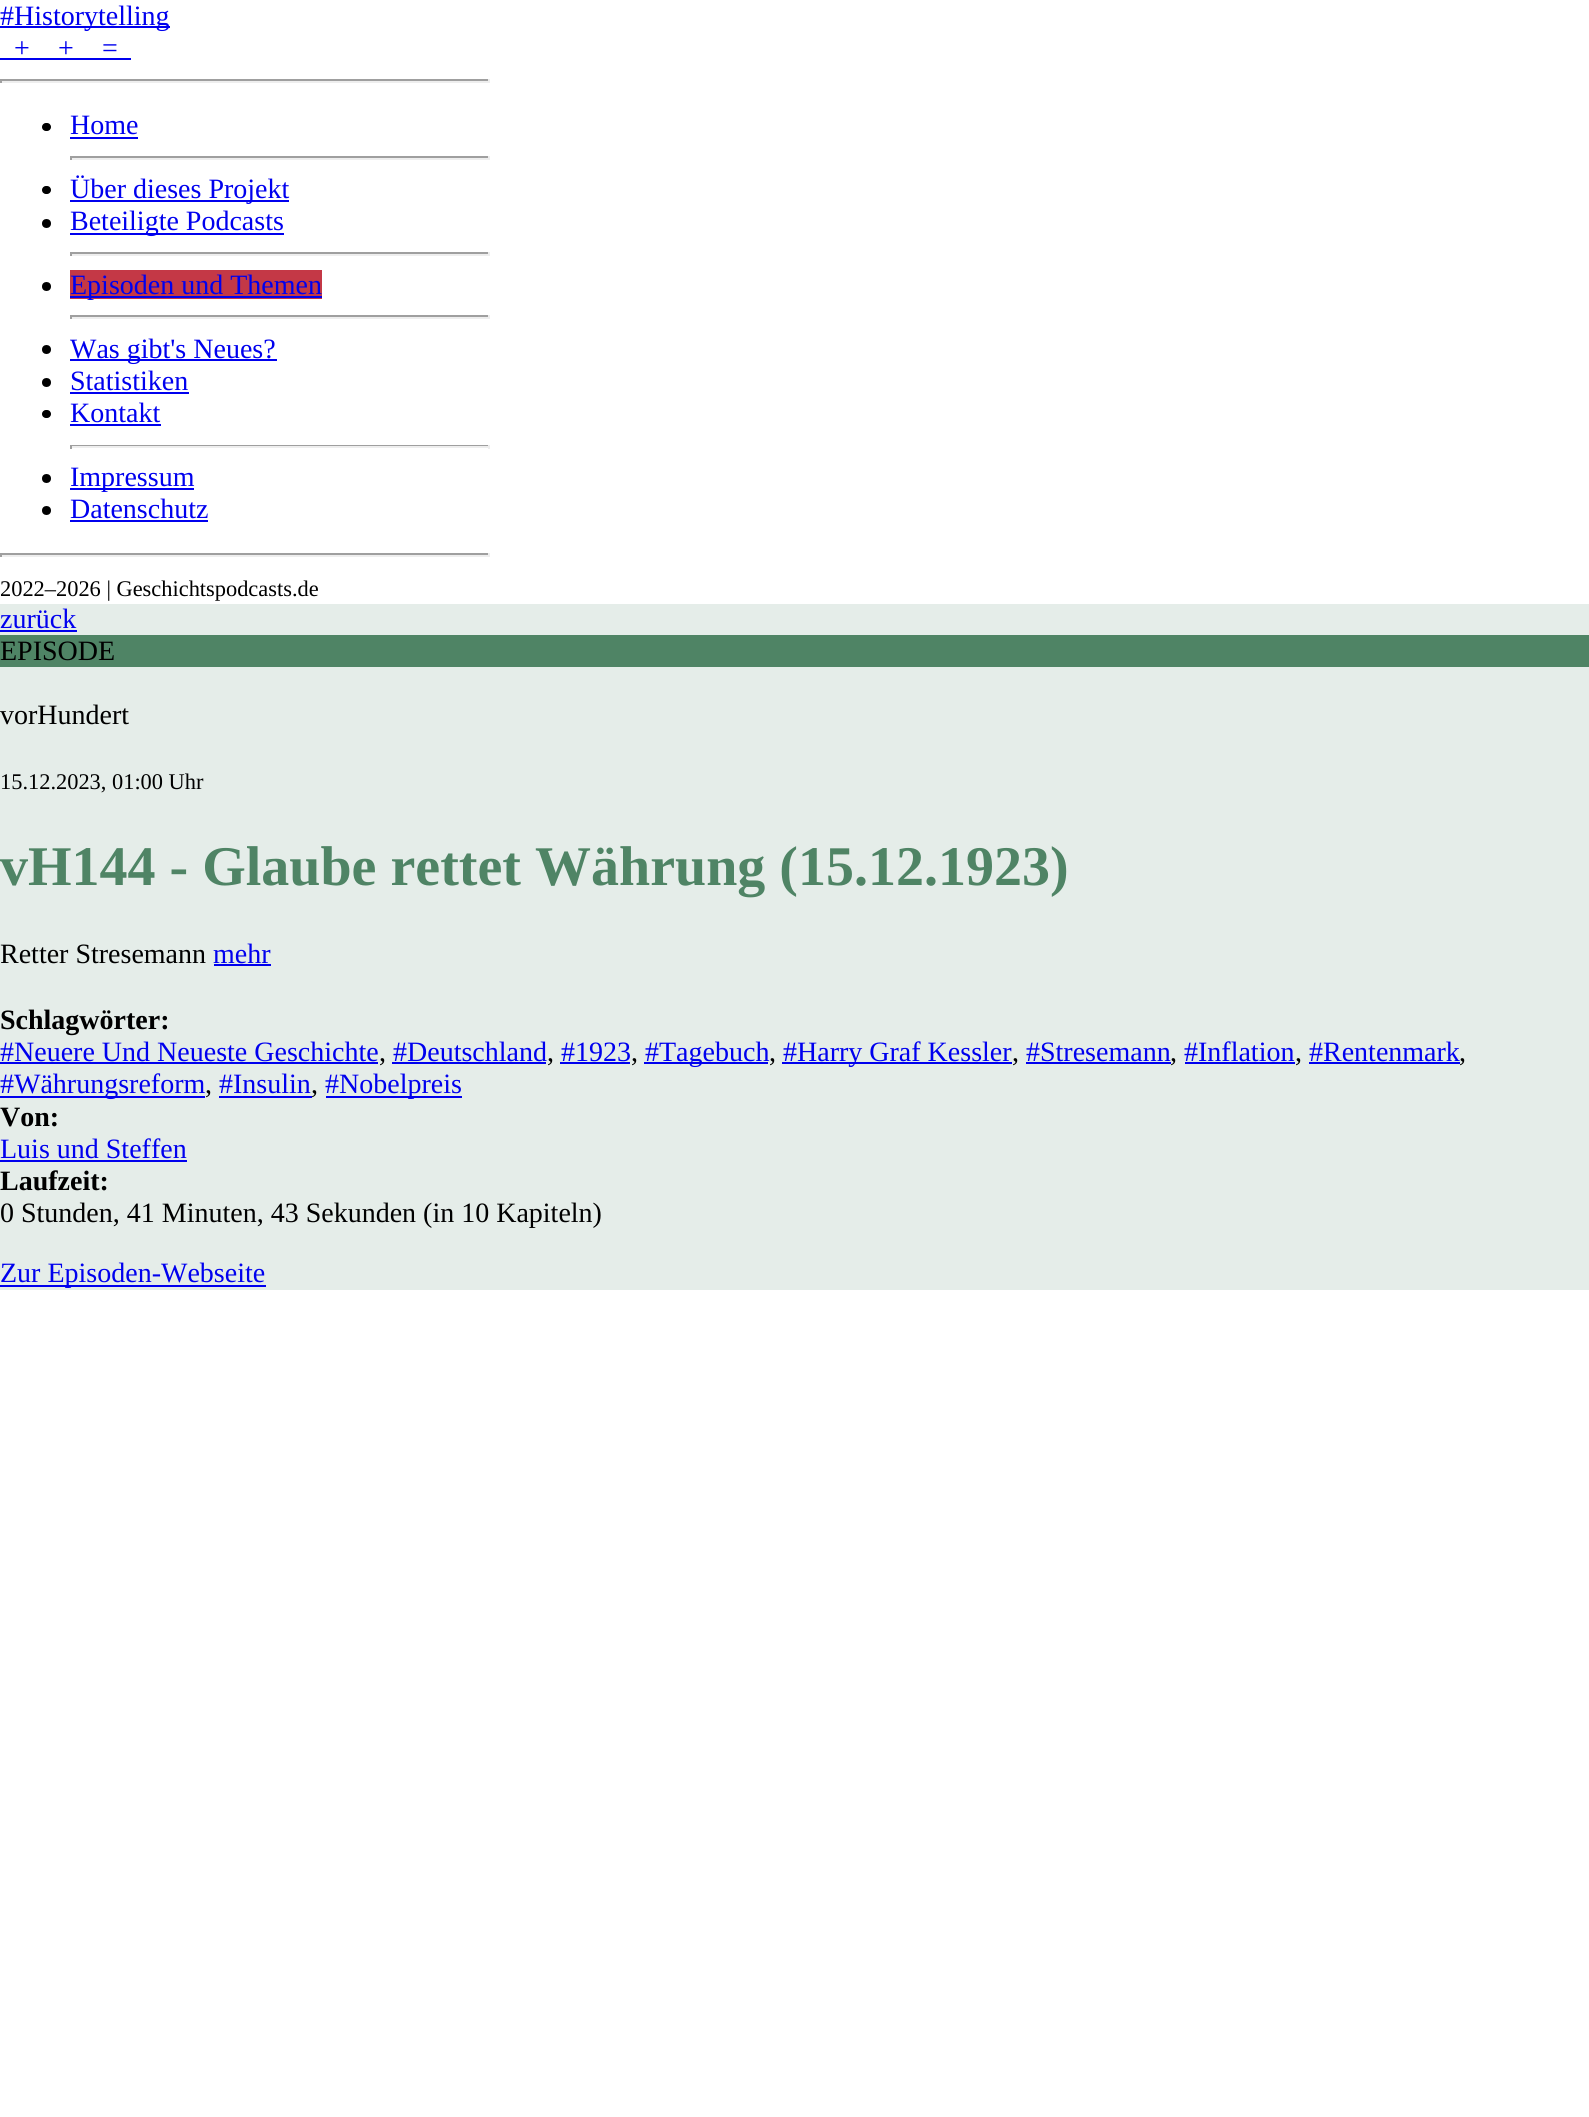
#include <cairo/cairo.h>
#include <math.h>
#include <stddef.h>

static cairo_t *cr;

static void use_color(int r, int g, int b) {
  cairo_set_source_rgb(cr, r / 255.0, g / 255.0, b / 255.0);
}

static void text(double x, double y, const char *s, const char *family, double size, int italic, int bold, int r, int g, int b) {
  cairo_select_font_face(cr, family, italic ? CAIRO_FONT_SLANT_ITALIC : CAIRO_FONT_SLANT_NORMAL,
    bold ? CAIRO_FONT_WEIGHT_BOLD : CAIRO_FONT_WEIGHT_NORMAL);
  cairo_set_font_size(cr, size);
  use_color(r, g, b);
  cairo_move_to(cr, x, y);
  cairo_show_text(cr, s);
}

static void box(double x, double y, double w, double h, int r, int g, int b) {
  use_color(r, g, b);
  cairo_rectangle(cr, x, y, w, h);
  cairo_fill(cr);
}

static void round_rect(double x, double y, double w, double h, double r) {
  cairo_new_sub_path(cr);
  cairo_arc(cr, x + w - r, y + h - r, r, 0, M_PI / 2);
  cairo_arc(cr, x + r, y + h - r, r, M_PI / 2, M_PI);
  cairo_arc(cr, x + r, y + r, r, M_PI, 1.5 * M_PI);
  cairo_arc(cr, x + w - r, y + r, r, 1.5 * M_PI, 2 * M_PI);
  cairo_close_path(cr);
}

static void draw(void) {
  use_color(255, 255, 255);
  cairo_paint(cr);
  box(0, 26, 170, 2, 0, 0, 238);
  box(0, 58, 131, 2, 0, 0, 238);
  box(0, 79, 490, 2, 159, 159, 159);
  box(488, 79, 2, 4, 238, 238, 238);
  box(0, 81, 490, 2, 238, 238, 238);
  box(0, 79, 2, 4, 159, 159, 159);
  use_color(0, 0, 0);
  round_rect(42, 123, 9, 8, 4);
  cairo_fill(cr);
  box(70, 137, 68, 2, 0, 0, 238);
  box(70, 156, 420, 2, 159, 159, 159);
  box(488, 156, 2, 4, 238, 238, 238);
  box(70, 158, 420, 2, 238, 238, 238);
  box(70, 156, 2, 4, 159, 159, 159);
  use_color(0, 0, 0);
  round_rect(42, 186, 9, 8, 4);
  cairo_fill(cr);
  box(70, 200, 219, 2, 0, 0, 238);
  use_color(0, 0, 0);
  cairo_arc(cr, 46.5, 223.5, 4.5, 0, 2 * M_PI);
  cairo_fill(cr);
  box(70, 233, 214, 2, 0, 0, 238);
  box(70, 252, 420, 2, 159, 159, 159);
  box(488, 252, 2, 4, 238, 238, 238);
  box(70, 254, 420, 2, 238, 238, 238);
  box(70, 252, 2, 4, 159, 159, 159);
  use_color(0, 0, 0);
  cairo_arc(cr, 46.5, 286.5, 4.5, 0, 2 * M_PI);
  cairo_fill(cr);
  box(70, 270, 252, 29, 196, 56, 70);
  box(70, 296, 252, 2, 0, 0, 238);
  box(70, 315, 420, 2, 159, 159, 159);
  box(488, 315, 2, 4, 238, 238, 238);
  box(70, 317, 420, 2, 238, 238, 238);
  box(70, 315, 2, 4, 159, 159, 159);
  use_color(0, 0, 0);
  cairo_arc(cr, 46.5, 349.5, 4.5, 0, 2 * M_PI);
  cairo_fill(cr);
  box(70, 359, 207, 2, 0, 0, 238);
  use_color(0, 0, 0);
  cairo_arc(cr, 46.5, 382.5, 4.5, 0, 2 * M_PI);
  cairo_fill(cr);
  box(70, 392, 119, 2, 0, 0, 238);
  use_color(0, 0, 0);
  round_rect(42, 410, 9, 8, 4);
  cairo_fill(cr);
  box(70, 424, 91, 2, 0, 0, 238);
  box(70, 445, 420, 1, 159, 159, 159);
  box(488, 445, 2, 4, 238, 238, 238);
  box(70, 446, 420, 2, 238, 238, 238);
  box(70, 445, 2, 4, 159, 159, 159);
  use_color(0, 0, 0);
  cairo_arc(cr, 46.5, 478.5, 4.5, 0, 2 * M_PI);
  cairo_fill(cr);
  box(70, 488, 124, 2, 0, 0, 238);
  use_color(0, 0, 0);
  cairo_arc(cr, 46.5, 510.5, 4.5, 0, 2 * M_PI);
  cairo_fill(cr);
  box(70, 520, 138, 2, 0, 0, 238);
  box(0, 553, 490, 2, 159, 159, 159);
  box(488, 553, 2, 4, 238, 238, 238);
  box(0, 555, 490, 2, 238, 238, 238);
  box(0, 553, 2, 4, 159, 159, 159);
  box(0, 604, 1589, 686, 229, 237, 233);
  box(0, 630, 77, 2, 0, 0, 238);
  box(0, 635, 1589, 32, 79, 132, 101);
  box(214, 964, 57, 2, 0, 0, 238);
  box(0, 1062, 378, 2, 0, 0, 238);
  box(392, 1062, 154, 2, 0, 0, 238);
  box(560, 1062, 70, 2, 0, 0, 238);
  box(644, 1062, 124, 2, 0, 0, 238);
  box(782, 1062, 230, 2, 0, 0, 238);
  box(1026, 1062, 145, 2, 0, 0, 238);
  box(1185, 1062, 110, 2, 0, 0, 238);
  box(1309, 1062, 151, 2, 0, 0, 238);
  box(0, 1096, 205, 2, 0, 0, 238);
  box(219, 1096, 93, 2, 0, 0, 238);
  box(326, 1096, 136, 2, 0, 0, 238);
  box(0, 1160, 187, 2, 0, 0, 238);
  box(0, 1285, 266, 2, 0, 0, 238);
  text(0, 25, "#Historytelling", "Liberation Serif", 28, 0, 0, 0, 0, 238);
  text(14, 57, "+", "Liberation Serif", 28, 0, 0, 0, 0, 238);
  text(58, 57, "+", "Liberation Serif", 28, 0, 0, 0, 0, 238);
  text(102, 57, "=", "Liberation Serif", 28, 0, 0, 0, 0, 238);
  text(70, 134, "Home", "Liberation Serif", 28, 0, 0, 0, 0, 238);
  text(70, 198, "Über dieses Projekt", "Liberation Serif", 28, 0, 0, 0, 0, 238);
  text(70, 230, "Beteiligte Podcasts", "Liberation Serif", 28, 0, 0, 0, 0, 238);
  text(70, 294, "Episoden und Themen", "Liberation Serif", 28, 0, 0, 0, 0, 238);
  text(70, 358, "Was gibt's Neues?", "Liberation Serif", 28, 0, 0, 0, 0, 238);
  text(70, 390, "Statistiken", "Liberation Serif", 28, 0, 0, 0, 0, 238);
  text(70, 422, "Kontakt", "Liberation Serif", 28, 0, 0, 0, 0, 238);
  text(70, 486, "Impressum", "Liberation Serif", 28, 0, 0, 0, 0, 238);
  text(70, 518, "Datenschutz", "Liberation Serif", 28, 0, 0, 0, 0, 238);
  text(0, 596, "2022–2026 | Geschichtspodcasts.de", "Liberation Serif", 22.4, 0, 0, 0, 0, 0);
  text(0, 628, "zurück", "Liberation Serif", 28, 0, 0, 0, 0, 238);
  text(0, 660, "EPISODE", "Liberation Serif", 28, 0, 0, 0, 0, 0);
  text(0, 724, "vorHundert", "Liberation Serif", 28, 0, 0, 0, 0, 0);
  text(0, 789, "15.12.2023, 01:00 Uhr", "Liberation Serif", 22.4, 0, 0, 0, 0, 0);
  text(0, 885, "vH144 - Glaube rettet Währung (15.12.1923)", "Liberation Serif", 56, 0, 1, 79, 132, 101);
  text(0, 963, "Retter Stresemann", "Liberation Serif", 28, 0, 0, 0, 0, 0);
  text(213, 963, "mehr", "Liberation Serif", 28, 0, 0, 0, 0, 238);
  text(0, 1029, "Schlagwörter:", "Liberation Serif", 28, 0, 1, 0, 0, 0);
  text(0, 1061, "#Neuere Und Neueste Geschichte", "Liberation Serif", 28, 0, 0, 0, 0, 238);
  text(379, 1061, ",", "Liberation Serif", 28, 0, 0, 0, 0, 0);
  text(393, 1061, "#Deutschland", "Liberation Serif", 28, 0, 0, 0, 0, 238);
  text(547, 1061, ",", "Liberation Serif", 28, 0, 0, 0, 0, 0);
  text(561, 1061, "#1923", "Liberation Serif", 28, 0, 0, 0, 0, 238);
  text(631, 1061, ",", "Liberation Serif", 28, 0, 0, 0, 0, 0);
  text(645, 1061, "#Tagebuch", "Liberation Serif", 28, 0, 0, 0, 0, 238);
  text(769, 1061, ",", "Liberation Serif", 28, 0, 0, 0, 0, 0);
  text(783, 1061, "#Harry Graf Kessler", "Liberation Serif", 28, 0, 0, 0, 0, 238);
  text(1012, 1061, ",", "Liberation Serif", 28, 0, 0, 0, 0, 0);
  text(1026, 1061, "#Stresemann", "Liberation Serif", 28, 0, 0, 0, 0, 238);
  text(1170, 1061, ",", "Liberation Serif", 28, 0, 0, 0, 0, 0);
  text(1184, 1061, "#Inflation", "Liberation Serif", 28, 0, 0, 0, 0, 238);
  text(1295, 1061, ",", "Liberation Serif", 28, 0, 0, 0, 0, 0);
  text(1309, 1061, "#Rentenmark", "Liberation Serif", 28, 0, 0, 0, 0, 238);
  text(1459, 1061, ",", "Liberation Serif", 28, 0, 0, 0, 0, 0);
  text(0, 1093, "#Währungsreform", "Liberation Serif", 28, 0, 0, 0, 0, 238);
  text(205, 1093, ",", "Liberation Serif", 28, 0, 0, 0, 0, 0);
  text(219, 1093, "#Insulin", "Liberation Serif", 28, 0, 0, 0, 0, 238);
  text(311, 1093, ",", "Liberation Serif", 28, 0, 0, 0, 0, 0);
  text(325, 1093, "#Nobelpreis", "Liberation Serif", 28, 0, 0, 0, 0, 238);
  text(0, 1126, "Von:", "Liberation Serif", 28, 0, 1, 0, 0, 0);
  text(0, 1158, "Luis und Steffen", "Liberation Serif", 28, 0, 0, 0, 0, 238);
  text(0, 1190, "Laufzeit:", "Liberation Serif", 28, 0, 1, 0, 0, 0);
  text(0, 1222, "0 Stunden, 41 Minuten, 43 Sekunden (in 10 Kapiteln)", "Liberation Serif", 28, 0, 0, 0, 0, 0);
  text(0, 1282, "Zur Episoden-Webseite", "Liberation Serif", 28, 0, 0, 0, 0, 238);
}

int main(void) {
  cairo_surface_t *surface = cairo_image_surface_create(CAIRO_FORMAT_RGB24, 1589, 2117);
  cr = cairo_create(surface);
  cairo_font_options_t *options = cairo_font_options_create();
  cairo_font_options_set_hint_metrics(options, CAIRO_HINT_METRICS_OFF);
  cairo_font_options_set_hint_style(options, CAIRO_HINT_STYLE_NONE);
  cairo_set_font_options(cr, options);
  cairo_set_miter_limit(cr, 4);
  draw();
  cairo_surface_write_to_png(surface, "out.png");
  cairo_font_options_destroy(options);
  cairo_destroy(cr);
  cairo_surface_destroy(surface);
  return 0;
}
